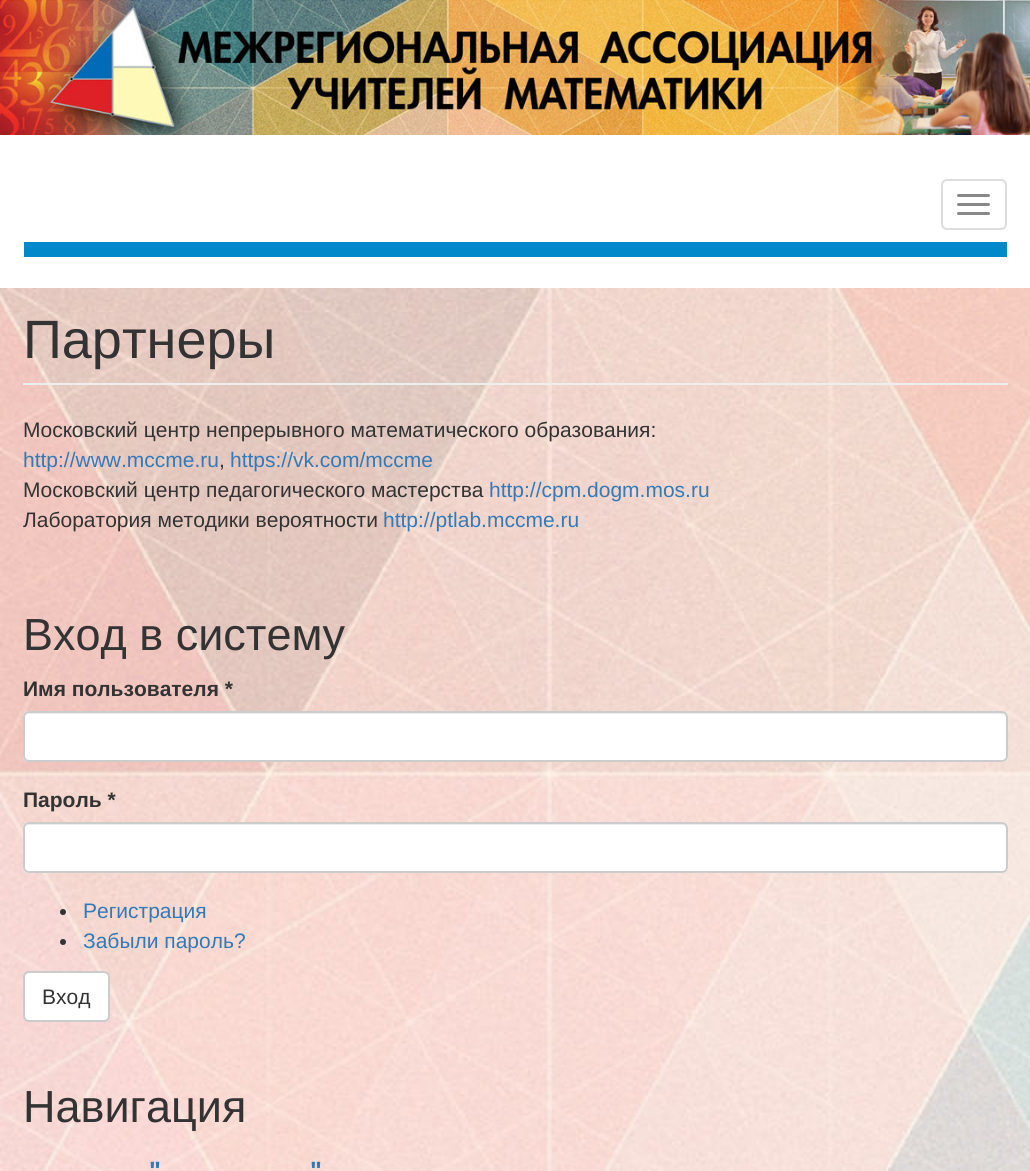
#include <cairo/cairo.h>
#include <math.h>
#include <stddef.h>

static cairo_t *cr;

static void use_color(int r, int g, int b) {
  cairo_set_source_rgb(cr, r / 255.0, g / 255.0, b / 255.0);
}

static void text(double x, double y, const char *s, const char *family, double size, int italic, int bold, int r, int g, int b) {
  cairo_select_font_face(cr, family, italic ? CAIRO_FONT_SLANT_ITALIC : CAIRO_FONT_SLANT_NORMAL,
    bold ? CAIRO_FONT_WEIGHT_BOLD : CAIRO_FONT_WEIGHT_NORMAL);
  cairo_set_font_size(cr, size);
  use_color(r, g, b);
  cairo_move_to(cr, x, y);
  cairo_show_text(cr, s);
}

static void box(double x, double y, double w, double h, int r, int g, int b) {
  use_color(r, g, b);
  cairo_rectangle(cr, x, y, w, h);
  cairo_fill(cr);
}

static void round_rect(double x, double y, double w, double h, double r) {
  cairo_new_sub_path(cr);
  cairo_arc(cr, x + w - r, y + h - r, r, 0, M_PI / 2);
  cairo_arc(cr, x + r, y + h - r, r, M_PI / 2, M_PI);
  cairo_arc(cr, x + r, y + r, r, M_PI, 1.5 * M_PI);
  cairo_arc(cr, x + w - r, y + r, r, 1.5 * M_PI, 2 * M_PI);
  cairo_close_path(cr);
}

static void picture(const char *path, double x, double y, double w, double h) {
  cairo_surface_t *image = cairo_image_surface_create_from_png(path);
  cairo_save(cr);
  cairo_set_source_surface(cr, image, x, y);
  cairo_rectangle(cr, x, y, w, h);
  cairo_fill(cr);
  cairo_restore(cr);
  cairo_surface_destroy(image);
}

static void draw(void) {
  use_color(255, 255, 255);
  cairo_paint(cr);
  picture("img_01.png", 0, 0, 1030, 135);
  box(24, 242, 983, 15, 1, 136, 202);
  round_rect(942, 180, 64, 49, 5);
  use_color(221, 221, 221);
  cairo_stroke(cr);
  use_color(136, 136, 136);
  round_rect(957, 194, 33, 3, 1.5);
  cairo_fill(cr);
  round_rect(957, 203, 33, 3, 1.5);
  cairo_fill(cr);
  round_rect(957, 212, 33, 3, 1.5);
  cairo_fill(cr);
  picture("img_02.png", 0, 288, 1030, 883);
  box(23, 383, 985, 2, 238, 238, 238);
  use_color(255, 255, 255);
  round_rect(23, 711, 985, 51, 6);
  cairo_fill(cr);
  use_color(236, 236, 236);
  cairo_new_path(cr);
  cairo_move_to(cr, 28, 714);
  cairo_line_to(cr, 1002, 714);
  cairo_curve_to(cr, 1004, 714, 1006, 716, 1006, 718);
  cairo_line_to(cr, 1006, 759);
  cairo_curve_to(cr, 1007, 758, 1007, 757, 1007, 756);
  cairo_line_to(cr, 1007, 718);
  cairo_curve_to(cr, 1007, 715, 1005, 713, 1002, 713);
  cairo_line_to(cr, 29, 713);
  cairo_curve_to(cr, 26, 713, 24, 715, 24, 718);
  cairo_curve_to(cr, 24, 716, 26, 714, 28, 714);
  cairo_close_path(cr);
  cairo_fill(cr);
  round_rect(24, 712, 983, 49, 5);
  use_color(204, 204, 204);
  cairo_stroke(cr);
  use_color(255, 255, 255);
  round_rect(23, 822, 985, 51, 6);
  cairo_fill(cr);
  use_color(236, 236, 236);
  cairo_new_path(cr);
  cairo_move_to(cr, 28, 825);
  cairo_line_to(cr, 1002, 825);
  cairo_curve_to(cr, 1004, 825, 1006, 827, 1006, 830);
  cairo_line_to(cr, 1006, 868);
  cairo_line_to(cr, 1005, 871);
  cairo_curve_to(cr, 1006, 870, 1007, 868, 1007, 867);
  cairo_line_to(cr, 1007, 829);
  cairo_curve_to(cr, 1007, 826, 1005, 824, 1002, 824);
  cairo_line_to(cr, 29, 824);
  cairo_curve_to(cr, 26, 824, 24, 826, 24, 829);
  cairo_line_to(cr, 24, 830);
  cairo_curve_to(cr, 24, 827, 26, 825, 28, 825);
  cairo_close_path(cr);
  cairo_fill(cr);
  round_rect(24, 823, 983, 49, 5);
  use_color(204, 204, 204);
  cairo_stroke(cr);
  use_color(51, 51, 51);
  cairo_arc(cr, 63, 912, 3, 0, 2 * M_PI);
  cairo_fill(cr);
  cairo_arc(cr, 63, 942, 3, 0, 2 * M_PI);
  cairo_fill(cr);
  use_color(255, 255, 255);
  round_rect(24, 972, 85, 49, 5);
  cairo_fill_preserve(cr);
  use_color(204, 204, 204);
  cairo_stroke(cr);
  text(23, 358, "Партнеры", "Liberation Sans", 54, 0, 0, 51, 51, 51);
  text(23, 437, "Московский центр непрерывного математического образования:", "Liberation Sans", 21, 0, 0, 51, 51, 51);
  text(23, 467, "http://www.mccme.ru", "Liberation Sans", 21, 0, 0, 51, 122, 183);
  text(219, 467, ",", "Liberation Sans", 21, 0, 0, 51, 51, 51);
  text(230, 467, "https://vk.com/mccme", "Liberation Sans", 21, 0, 0, 51, 122, 183);
  text(23, 497, "Московский центр педагогического мастерства", "Liberation Sans", 21, 0, 0, 51, 51, 51);
  text(489, 497, "http://cpm.dogm.mos.ru", "Liberation Sans", 21, 0, 0, 51, 122, 183);
  text(23, 527, "Лаборатория методики вероятности", "Liberation Sans", 21, 0, 0, 51, 51, 51);
  text(383, 527, "http://ptlab.mccme.ru", "Liberation Sans", 21, 0, 0, 51, 122, 183);
  text(23, 650, "Вход в систему", "Liberation Sans", 45, 0, 0, 51, 51, 51);
  text(23, 696, "Имя пользователя *", "Liberation Sans", 21, 0, 1, 51, 51, 51);
  text(23, 807, "Пароль *", "Liberation Sans", 21, 0, 1, 51, 51, 51);
  text(83, 918, "Регистрация", "Liberation Sans", 21, 0, 0, 51, 122, 183);
  text(83, 948, "Забыли пароль?", "Liberation Sans", 21, 0, 0, 51, 122, 183);
  text(42, 1004, "Вход", "Liberation Sans", 21, 0, 0, 51, 51, 51);
  text(23, 1122, "Навигация", "Liberation Sans", 45, 0, 0, 51, 51, 51);
  text(149, 1179, "\"", "Liberation Sans", 25, 0, 1, 51, 122, 183);
  text(310, 1179, "\"", "Liberation Sans", 25, 0, 1, 51, 122, 183);
}

int main(void) {
  cairo_surface_t *surface = cairo_image_surface_create(CAIRO_FORMAT_RGB24, 1030, 1171);
  cr = cairo_create(surface);
  cairo_font_options_t *options = cairo_font_options_create();
  cairo_font_options_set_hint_metrics(options, CAIRO_HINT_METRICS_OFF);
  cairo_font_options_set_hint_style(options, CAIRO_HINT_STYLE_NONE);
  cairo_set_font_options(cr, options);
  cairo_set_miter_limit(cr, 4);
  draw();
  cairo_surface_write_to_png(surface, "out.png");
  cairo_font_options_destroy(options);
  cairo_destroy(cr);
  cairo_surface_destroy(surface);
  return 0;
}
